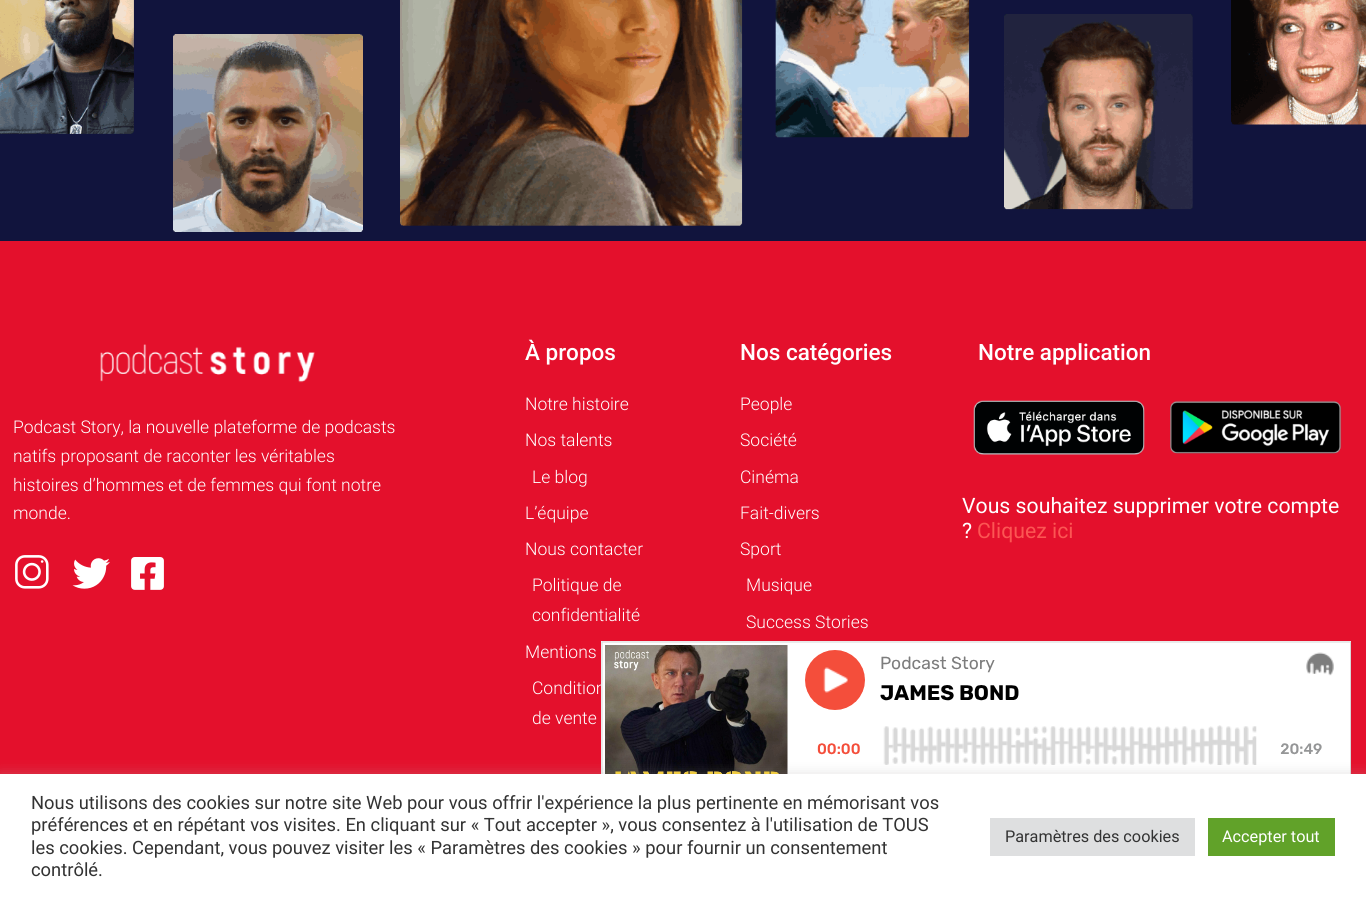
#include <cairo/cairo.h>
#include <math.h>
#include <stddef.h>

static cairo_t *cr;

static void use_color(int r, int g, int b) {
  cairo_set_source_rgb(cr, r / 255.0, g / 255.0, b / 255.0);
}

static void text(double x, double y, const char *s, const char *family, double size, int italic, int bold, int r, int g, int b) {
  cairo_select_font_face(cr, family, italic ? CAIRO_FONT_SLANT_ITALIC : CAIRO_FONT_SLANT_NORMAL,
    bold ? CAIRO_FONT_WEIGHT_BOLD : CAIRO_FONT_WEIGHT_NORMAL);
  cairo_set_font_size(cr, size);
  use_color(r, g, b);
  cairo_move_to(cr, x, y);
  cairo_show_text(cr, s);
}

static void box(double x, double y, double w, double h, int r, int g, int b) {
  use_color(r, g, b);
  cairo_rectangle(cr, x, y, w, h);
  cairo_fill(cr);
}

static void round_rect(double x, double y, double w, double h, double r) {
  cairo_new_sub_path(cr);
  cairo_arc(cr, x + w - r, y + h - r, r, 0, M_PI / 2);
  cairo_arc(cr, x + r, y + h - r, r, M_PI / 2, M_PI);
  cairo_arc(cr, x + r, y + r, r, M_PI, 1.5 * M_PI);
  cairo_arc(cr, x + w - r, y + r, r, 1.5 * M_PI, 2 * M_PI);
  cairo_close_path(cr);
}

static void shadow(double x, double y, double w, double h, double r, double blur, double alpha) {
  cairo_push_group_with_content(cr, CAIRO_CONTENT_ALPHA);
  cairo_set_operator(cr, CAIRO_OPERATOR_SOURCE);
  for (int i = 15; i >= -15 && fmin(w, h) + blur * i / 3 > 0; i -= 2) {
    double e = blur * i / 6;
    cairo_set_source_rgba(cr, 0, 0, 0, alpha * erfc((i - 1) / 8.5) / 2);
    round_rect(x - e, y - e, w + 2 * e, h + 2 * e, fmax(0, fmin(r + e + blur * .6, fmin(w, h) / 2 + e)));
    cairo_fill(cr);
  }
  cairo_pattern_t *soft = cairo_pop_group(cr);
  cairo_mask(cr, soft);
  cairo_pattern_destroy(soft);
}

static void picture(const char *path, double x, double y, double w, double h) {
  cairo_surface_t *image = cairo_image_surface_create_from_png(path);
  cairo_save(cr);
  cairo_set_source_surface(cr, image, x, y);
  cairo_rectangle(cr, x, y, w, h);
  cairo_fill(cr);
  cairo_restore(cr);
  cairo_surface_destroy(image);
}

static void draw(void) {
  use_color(17, 20, 61);
  cairo_paint(cr);
  picture("img_01.png", 0, 0, 1366, 232);
  box(0, 241, 1366, 533, 228, 16, 44);
  picture("img_02.png", 100, 344, 215, 39);
  picture("img_03.png", 15, 555, 34, 34);
  picture("img_04.png", 72, 558, 38, 31);
  picture("img_05.png", 131, 557, 33, 33);
  picture("img_06.png", 973, 400, 172, 55);
  picture("img_07.png", 1170, 400, 172, 54);
  text(13, 433, "Podcast Story, la nouvelle plateforme de podcasts", "Roboto Light", 17.5, 0, 0, 255, 255, 255);
  text(13, 462, "natifs proposant de raconter les véritables", "Roboto Light", 17.5, 0, 0, 255, 255, 255);
  text(13, 491, "histoires d’hommes et de femmes qui font notre", "Roboto Light", 17.5, 0, 0, 255, 255, 255);
  text(13, 519, "monde.", "Roboto Light", 17.5, 0, 0, 255, 255, 255);
  text(525, 360, "À propos", "Roboto Medium", 22.5, 0, 0, 255, 255, 255);
  text(525, 410, "Notre histoire", "Roboto Light", 17.5, 0, 0, 255, 255, 255);
  text(525, 446, "Nos talents", "Roboto Light", 17.5, 0, 0, 255, 255, 255);
  text(532, 483, "Le blog", "Roboto Light", 17.5, 0, 0, 255, 255, 255);
  text(525, 519, "L’équipe", "Roboto Light", 17.5, 0, 0, 255, 255, 255);
  text(525, 555, "Nous contacter", "Roboto Light", 17.5, 0, 0, 255, 255, 255);
  text(532, 591, "Politique de", "Roboto Light", 17.5, 0, 0, 255, 255, 255);
  text(532, 621, "confidentialité", "Roboto Light", 17.5, 0, 0, 255, 255, 255);
  text(525, 658, "Mentions", "Roboto Light", 17.5, 0, 0, 255, 255, 255);
  text(532, 694, "Condition", "Roboto Light", 17.5, 0, 0, 255, 255, 255);
  text(532, 724, "de vente", "Roboto Light", 17.5, 0, 0, 255, 255, 255);
  text(740, 360, "Nos catégories", "Roboto Medium", 22.5, 0, 0, 255, 255, 255);
  text(740, 410, "People", "Roboto Light", 17.5, 0, 0, 255, 255, 255);
  text(740, 446, "Société", "Roboto Light", 17.5, 0, 0, 255, 255, 255);
  text(740, 483, "Cinéma", "Roboto Light", 17.5, 0, 0, 255, 255, 255);
  text(740, 519, "Fait-divers", "Roboto Light", 17.5, 0, 0, 255, 255, 255);
  text(740, 555, "Sport", "Roboto Light", 17.5, 0, 0, 255, 255, 255);
  text(746, 591, "Musique", "Roboto Light", 17.5, 0, 0, 255, 255, 255);
  text(746, 628, "Success Stories", "Roboto Light", 17.5, 0, 0, 255, 255, 255);
  text(978, 360, "Notre application", "Roboto Medium", 22.5, 0, 0, 255, 255, 255);
  text(962, 513, "Vous souhaitez supprimer votre compte", "Roboto", 21.25, 0, 0, 255, 255, 255);
  text(962, 538, "?", "Roboto", 21.25, 0, 0, 255, 255, 255);
  text(977, 538, "Cliquez ici", "Roboto", 21.25, 0, 0, 252, 86, 83);
  picture("img_08.png", 601, 641, 750, 133);
  use_color(172, 171, 171);
  shadow(0, 773, 1366, 125, 0, 6, 0.3);
  box(0, 774, 1366, 124, 255, 255, 255);
  text(31, 809, "Nous utilisons des cookies sur notre site Web pour vous offrir l'expérience la plus pertinente en mémorisant vos", "Roboto", 18.35, 0, 0, 51, 51, 51);
  text(31, 831, "préférences et en répétant vos visites. En cliquant sur « Tout accepter », vous consentez à l'utilisation de TOUS", "Roboto", 18.35, 0, 0, 51, 51, 51);
  text(31, 854, "les cookies. Cependant, vous pouvez visiter les « Paramètres des cookies » pour fournir un consentement", "Roboto", 18.35, 0, 0, 51, 51, 51);
  text(31, 876, "contrôlé.", "Roboto", 18.35, 0, 0, 51, 51, 51);
  box(990, 818, 205, 38, 222, 223, 224);
  text(1005, 842, "Paramètres des cookies", "Roboto", 16.25, 0, 0, 51, 51, 51);
  box(1208, 818, 127, 38, 97, 162, 41);
  text(1222, 842, "Accepter tout", "Roboto", 16.25, 0, 0, 255, 255, 255);
}

int main(void) {
  cairo_surface_t *surface = cairo_image_surface_create(CAIRO_FORMAT_RGB24, 1366, 898);
  cr = cairo_create(surface);
  cairo_font_options_t *options = cairo_font_options_create();
  cairo_font_options_set_hint_metrics(options, CAIRO_HINT_METRICS_OFF);
  cairo_font_options_set_hint_style(options, CAIRO_HINT_STYLE_NONE);
  cairo_set_font_options(cr, options);
  cairo_set_miter_limit(cr, 4);
  draw();
  cairo_surface_write_to_png(surface, "out.png");
  cairo_font_options_destroy(options);
  cairo_destroy(cr);
  cairo_surface_destroy(surface);
  return 0;
}
